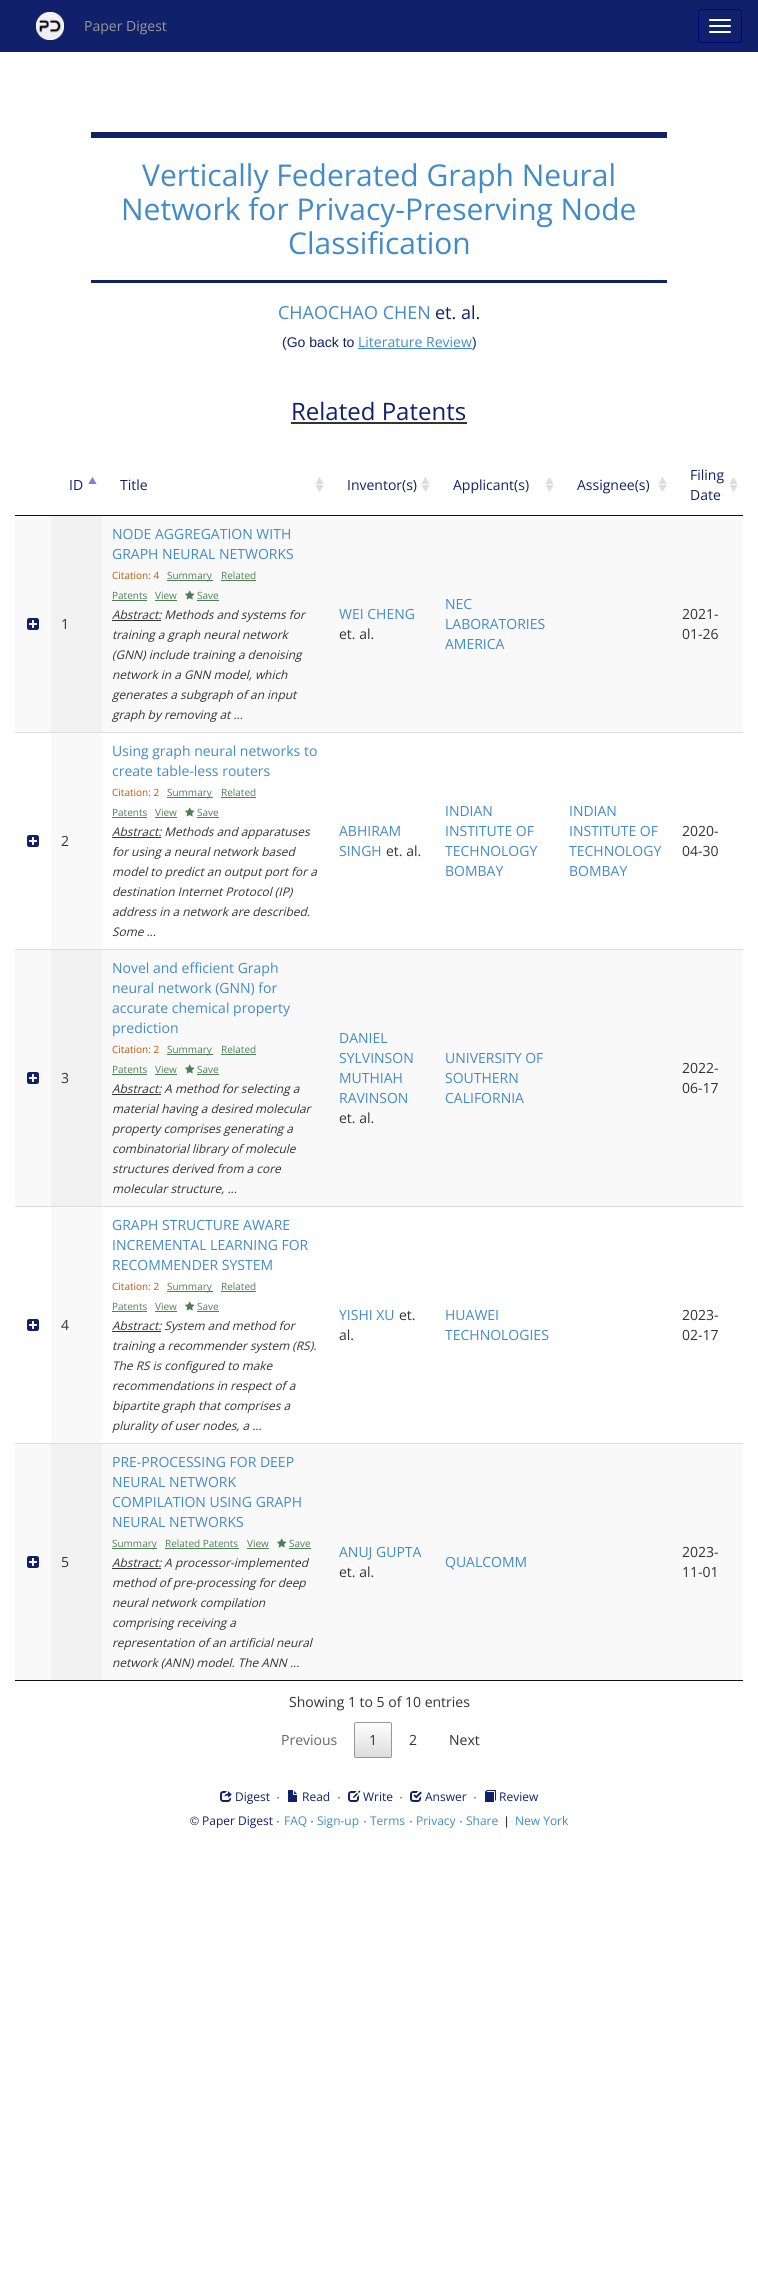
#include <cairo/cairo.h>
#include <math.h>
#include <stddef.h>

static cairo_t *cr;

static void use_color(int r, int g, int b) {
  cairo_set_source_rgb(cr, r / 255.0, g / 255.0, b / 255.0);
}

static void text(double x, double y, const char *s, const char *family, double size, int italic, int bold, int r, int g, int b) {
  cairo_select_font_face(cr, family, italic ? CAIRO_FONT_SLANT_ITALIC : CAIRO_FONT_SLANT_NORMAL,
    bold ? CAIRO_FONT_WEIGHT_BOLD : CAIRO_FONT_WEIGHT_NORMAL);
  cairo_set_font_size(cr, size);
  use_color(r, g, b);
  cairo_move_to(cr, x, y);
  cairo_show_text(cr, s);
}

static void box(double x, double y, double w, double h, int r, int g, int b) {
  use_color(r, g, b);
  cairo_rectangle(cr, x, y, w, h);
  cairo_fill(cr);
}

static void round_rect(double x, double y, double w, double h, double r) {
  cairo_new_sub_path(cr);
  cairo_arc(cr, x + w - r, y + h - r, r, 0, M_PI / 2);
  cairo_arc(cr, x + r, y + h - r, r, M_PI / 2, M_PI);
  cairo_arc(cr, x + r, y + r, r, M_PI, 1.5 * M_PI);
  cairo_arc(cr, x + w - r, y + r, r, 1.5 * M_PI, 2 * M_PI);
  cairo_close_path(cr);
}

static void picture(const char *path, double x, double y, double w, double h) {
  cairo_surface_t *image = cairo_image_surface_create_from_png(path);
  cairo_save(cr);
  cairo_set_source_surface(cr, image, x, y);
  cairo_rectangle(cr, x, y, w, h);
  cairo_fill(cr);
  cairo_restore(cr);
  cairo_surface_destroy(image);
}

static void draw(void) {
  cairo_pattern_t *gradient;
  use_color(255, 255, 255);
  cairo_paint(cr);
  box(0, 0, 758, 52, 16, 32, 107);
  picture("img_01.png", 36, 12, 28, 28);
  round_rect(698.5, 9.5, 43, 33, 3.5);
  use_color(0, 0, 128);
  cairo_set_line_width(cr, 1);
  cairo_stroke(cr);
  use_color(255, 255, 255);
  round_rect(709, 19, 22, 2, 1);
  cairo_fill(cr);
  round_rect(709, 25, 22, 2, 1);
  cairo_fill(cr);
  round_rect(709, 31, 22, 2, 1);
  cairo_fill(cr);
  box(91, 132, 576, 6, 16, 32, 107);
  box(91, 280, 576, 3, 16, 32, 107);
  box(358, 348, 114, 1, 66, 139, 202);
  box(291, 422, 176, 2, 51, 51, 51);
  box(15, 1680, 728, 1, 17, 17, 17);
  picture("img_02.png", 88, 477, 9, 7);
  picture("img_03.png", 315, 477, 9, 15);
  picture("img_03.png", 421, 477, 9, 15);
  picture("img_03.png", 545, 477, 9, 15);
  picture("img_03.png", 658, 477, 9, 15);
  picture("img_03.png", 729, 477, 9, 15);
  box(15, 515, 728, 1, 17, 17, 17);
  box(15, 516, 728, 216, 249, 249, 249);
  picture("img_04.png", 27, 618, 12, 12);
  box(51, 516, 51, 216, 241, 241, 241);
  box(167, 580, 46, 1, 77, 128, 85);
  box(221, 580, 35, 1, 77, 128, 85);
  box(112, 600, 35, 1, 77, 128, 85);
  box(155, 600, 22, 1, 77, 128, 85);
  picture("img_05.png", 185, 590, 10, 10);
  box(197, 600, 22, 1, 77, 128, 85);
  box(112, 620, 49, 1, 51, 51, 51);
  box(15, 732, 728, 1, 221, 221, 221);
  picture("img_06.png", 27, 835, 12, 12);
  box(51, 733, 51, 216, 249, 249, 249);
  box(167, 797, 46, 1, 77, 128, 85);
  box(221, 797, 35, 1, 77, 128, 85);
  box(112, 817, 35, 1, 77, 128, 85);
  box(155, 817, 22, 1, 77, 128, 85);
  picture("img_07.png", 185, 807, 10, 10);
  box(197, 817, 22, 1, 77, 128, 85);
  box(112, 837, 49, 1, 51, 51, 51);
  box(15, 950, 728, 256, 249, 249, 249);
  box(15, 949, 728, 1, 221, 221, 221);
  picture("img_04.png", 27, 1072, 12, 12);
  box(51, 950, 51, 256, 241, 241, 241);
  box(167, 1054, 46, 1, 77, 128, 85);
  box(221, 1054, 35, 1, 77, 128, 85);
  box(112, 1074, 35, 1, 77, 128, 85);
  box(155, 1074, 22, 1, 77, 128, 85);
  picture("img_05.png", 185, 1064, 10, 10);
  box(197, 1074, 22, 1, 77, 128, 85);
  box(112, 1094, 49, 1, 51, 51, 51);
  box(15, 1206, 728, 1, 221, 221, 221);
  picture("img_06.png", 27, 1319, 12, 12);
  box(51, 1207, 51, 236, 249, 249, 249);
  box(167, 1291, 46, 1, 77, 128, 85);
  box(221, 1291, 35, 1, 77, 128, 85);
  box(112, 1311, 35, 1, 77, 128, 85);
  box(155, 1311, 22, 1, 77, 128, 85);
  picture("img_07.png", 185, 1301, 10, 10);
  box(197, 1311, 22, 1, 77, 128, 85);
  box(112, 1331, 49, 1, 51, 51, 51);
  box(15, 1444, 728, 236, 249, 249, 249);
  box(15, 1443, 728, 1, 221, 221, 221);
  picture("img_04.png", 27, 1556, 12, 12);
  box(51, 1444, 51, 236, 241, 241, 241);
  box(112, 1548, 45, 1, 77, 128, 85);
  box(165, 1548, 74, 1, 77, 128, 85);
  box(247, 1548, 22, 1, 77, 128, 85);
  picture("img_05.png", 277, 1538, 10, 10);
  box(289, 1548, 22, 1, 77, 128, 85);
  box(112, 1568, 49, 1, 51, 51, 51);
  cairo_save(cr);
  round_rect(354, 1722, 38, 36, 2);
  cairo_clip(cr);
  gradient = cairo_pattern_create_linear(373, 1723, 373, 1757);
  cairo_pattern_add_color_stop_rgba(gradient, 0, 1, 1, 1, 1);
  cairo_pattern_add_color_stop_rgba(gradient, 1, 0.863, 0.863, 0.863, 1);
  cairo_set_source(cr, gradient);
  cairo_pattern_destroy(gradient);
  cairo_rectangle(cr, 354, 1723, 38, 34);
  cairo_fill(cr);
  cairo_restore(cr);
  round_rect(354.5, 1722.5, 37, 35, 1.5);
  use_color(151, 151, 151);
  cairo_stroke(cr);
  picture("img_08.png", 220, 1791, 12, 11);
  picture("img_09.png", 288, 1790, 9, 12);
  picture("img_10.png", 348, 1790, 13, 12);
  picture("img_11.png", 410, 1791, 12, 11);
  picture("img_12.png", 485, 1790, 11, 12);
  text(84, 31, "Paper Digest", "Open Sans", 14, 0, 0, 153, 153, 153);
  text(142, 186, "Vertically Federated Graph Neural", "Open Sans", 30, 0, 0, 66, 139, 202);
  text(121, 220, "Network for Privacy-Preserving Node", "Open Sans", 30, 0, 0, 66, 139, 202);
  text(288, 254, "Classification", "Open Sans", 30, 0, 0, 66, 139, 202);
  text(278, 319, "CHAOCHAO CHEN", "Open Sans", 18, 0, 0, 66, 139, 202);
  text(435, 319, "et. al.", "Open Sans", 18, 0, 0, 16, 32, 107);
  text(282, 347, "(Go back to", "Liberation Sans", 14, 0, 0, 16, 32, 107);
  text(358, 347, "Literature Review", "Open Sans", 14, 0, 0, 66, 139, 202);
  text(472, 347, ")", "Liberation Sans", 14, 0, 0, 16, 32, 107);
  text(291, 420, "Related Patents", "Open Sans", 24, 0, 0, 16, 32, 107);
  text(69, 490, "ID", "Open Sans", 14, 0, 0, 16, 32, 107);
  text(120, 490, "Title", "Open Sans", 14, 0, 0, 16, 32, 107);
  text(347, 490, "Inventor(s)", "Open Sans", 14, 0, 0, 16, 32, 107);
  text(453, 490, "Applicant(s)", "Open Sans", 14, 0, 0, 16, 32, 107);
  text(577, 490, "Assignee(s)", "Open Sans", 14, 0, 0, 16, 32, 107);
  text(690, 480, "Filing", "Open Sans", 14, 0, 0, 16, 32, 107);
  text(690, 500, "Date", "Open Sans", 14, 0, 0, 16, 32, 107);
  text(61, 629, "1", "Open Sans", 14, 0, 0, 51, 51, 51);
  text(112, 539, "NODE AGGREGATION WITH", "Open Sans", 14, 0, 0, 66, 139, 202);
  text(112, 559, "GRAPH NEURAL NETWORKS", "Open Sans", 14, 0, 0, 66, 139, 202);
  text(112, 579, "Citation: 4", "Open Sans", 10, 0, 0, 192, 86, 0);
  text(167, 579, "Summary", "Open Sans", 10, 0, 0, 77, 128, 85);
  text(221, 579, "Related", "Open Sans", 10, 0, 0, 77, 128, 85);
  text(112, 599, "Patents", "Open Sans", 10, 0, 0, 77, 128, 85);
  text(155, 599, "View", "Open Sans", 10, 0, 0, 77, 128, 85);
  text(197, 599, "Save", "Open Sans", 10, 0, 0, 77, 128, 85);
  text(112, 619, "Abstract: Methods and systems for", "Open Sans", 11.9, 1, 0, 51, 51, 51);
  text(112, 639, "training a graph neural network", "Open Sans", 11.9, 1, 0, 51, 51, 51);
  text(112, 659, "(GNN) include training a denoising", "Open Sans", 11.9, 1, 0, 51, 51, 51);
  text(112, 679, "network in a GNN model, which", "Open Sans", 11.9, 1, 0, 51, 51, 51);
  text(112, 699, "generates a subgraph of an input", "Open Sans", 11.9, 1, 0, 51, 51, 51);
  text(112, 719, "graph by removing at ...", "Open Sans", 11.9, 1, 0, 51, 51, 51);
  text(339, 619, "WEI CHENG", "Open Sans", 14, 0, 0, 66, 139, 202);
  text(339, 639, "et. al.", "Open Sans", 14, 0, 0, 51, 51, 51);
  text(445, 609, "NEC", "Open Sans", 14, 0, 0, 66, 139, 202);
  text(445, 629, "LABORATORIES", "Open Sans", 14, 0, 0, 66, 139, 202);
  text(445, 649, "AMERICA", "Open Sans", 14, 0, 0, 66, 139, 202);
  text(682, 619, "2021-", "Open Sans", 14, 0, 0, 51, 51, 51);
  text(682, 639, "01-26", "Open Sans", 14, 0, 0, 51, 51, 51);
  text(61, 846, "2", "Open Sans", 14, 0, 0, 51, 51, 51);
  text(112, 756, "Using graph neural networks to", "Open Sans", 14, 0, 0, 66, 139, 202);
  text(112, 776, "create table-less routers", "Open Sans", 14, 0, 0, 66, 139, 202);
  text(112, 796, "Citation: 2", "Open Sans", 10, 0, 0, 192, 86, 0);
  text(167, 796, "Summary", "Open Sans", 10, 0, 0, 77, 128, 85);
  text(221, 796, "Related", "Open Sans", 10, 0, 0, 77, 128, 85);
  text(112, 816, "Patents", "Open Sans", 10, 0, 0, 77, 128, 85);
  text(155, 816, "View", "Open Sans", 10, 0, 0, 77, 128, 85);
  text(197, 816, "Save", "Open Sans", 10, 0, 0, 77, 128, 85);
  text(112, 836, "Abstract: Methods and apparatuses", "Open Sans", 11.9, 1, 0, 51, 51, 51);
  text(112, 856, "for using a neural network based", "Open Sans", 11.9, 1, 0, 51, 51, 51);
  text(112, 876, "model to predict an output port for a", "Open Sans", 11.9, 1, 0, 51, 51, 51);
  text(112, 896, "destination Internet Protocol (IP)", "Open Sans", 11.9, 1, 0, 51, 51, 51);
  text(112, 916, "address in a network are described.", "Open Sans", 11.9, 1, 0, 51, 51, 51);
  text(112, 936, "Some ...", "Open Sans", 11.9, 1, 0, 51, 51, 51);
  text(339, 836, "ABHIRAM", "Open Sans", 14, 0, 0, 66, 139, 202);
  text(339, 856, "SINGH", "Open Sans", 14, 0, 0, 66, 139, 202);
  text(386, 856, "et. al.", "Open Sans", 14, 0, 0, 51, 51, 51);
  text(445, 816, "INDIAN", "Open Sans", 14, 0, 0, 66, 139, 202);
  text(445, 836, "INSTITUTE OF", "Open Sans", 14, 0, 0, 66, 139, 202);
  text(445, 856, "TECHNOLOGY", "Open Sans", 14, 0, 0, 66, 139, 202);
  text(445, 876, "BOMBAY", "Open Sans", 14, 0, 0, 66, 139, 202);
  text(569, 816, "INDIAN", "Open Sans", 14, 0, 0, 66, 139, 202);
  text(569, 836, "INSTITUTE OF", "Open Sans", 14, 0, 0, 66, 139, 202);
  text(569, 856, "TECHNOLOGY", "Open Sans", 14, 0, 0, 66, 139, 202);
  text(569, 876, "BOMBAY", "Open Sans", 14, 0, 0, 66, 139, 202);
  text(682, 836, "2020-", "Open Sans", 14, 0, 0, 51, 51, 51);
  text(682, 856, "04-30", "Open Sans", 14, 0, 0, 51, 51, 51);
  text(61, 1083, "3", "Open Sans", 14, 0, 0, 51, 51, 51);
  text(112, 973, "Novel and efficient Graph", "Open Sans", 14, 0, 0, 66, 139, 202);
  text(112, 993, "neural network (GNN) for", "Open Sans", 14, 0, 0, 66, 139, 202);
  text(112, 1013, "accurate chemical property", "Open Sans", 14, 0, 0, 66, 139, 202);
  text(112, 1033, "prediction", "Open Sans", 14, 0, 0, 66, 139, 202);
  text(112, 1053, "Citation: 2", "Open Sans", 10, 0, 0, 192, 86, 0);
  text(167, 1053, "Summary", "Open Sans", 10, 0, 0, 77, 128, 85);
  text(221, 1053, "Related", "Open Sans", 10, 0, 0, 77, 128, 85);
  text(112, 1073, "Patents", "Open Sans", 10, 0, 0, 77, 128, 85);
  text(155, 1073, "View", "Open Sans", 10, 0, 0, 77, 128, 85);
  text(197, 1073, "Save", "Open Sans", 10, 0, 0, 77, 128, 85);
  text(112, 1093, "Abstract: A method for selecting a", "Open Sans", 11.9, 1, 0, 51, 51, 51);
  text(112, 1113, "material having a desired molecular", "Open Sans", 11.9, 1, 0, 51, 51, 51);
  text(112, 1133, "property comprises generating a", "Open Sans", 11.9, 1, 0, 51, 51, 51);
  text(112, 1153, "combinatorial library of molecule", "Open Sans", 11.9, 1, 0, 51, 51, 51);
  text(112, 1173, "structures derived from a core", "Open Sans", 11.9, 1, 0, 51, 51, 51);
  text(112, 1193, "molecular structure, ...", "Open Sans", 11.9, 1, 0, 51, 51, 51);
  text(339, 1043, "DANIEL", "Open Sans", 14, 0, 0, 66, 139, 202);
  text(339, 1063, "SYLVINSON", "Open Sans", 14, 0, 0, 66, 139, 202);
  text(339, 1083, "MUTHIAH", "Open Sans", 14, 0, 0, 66, 139, 202);
  text(339, 1103, "RAVINSON", "Open Sans", 14, 0, 0, 66, 139, 202);
  text(339, 1123, "et. al.", "Open Sans", 14, 0, 0, 51, 51, 51);
  text(445, 1063, "UNIVERSITY OF", "Open Sans", 14, 0, 0, 66, 139, 202);
  text(445, 1083, "SOUTHERN", "Open Sans", 14, 0, 0, 66, 139, 202);
  text(445, 1103, "CALIFORNIA", "Open Sans", 14, 0, 0, 66, 139, 202);
  text(682, 1073, "2022-", "Open Sans", 14, 0, 0, 51, 51, 51);
  text(682, 1093, "06-17", "Open Sans", 14, 0, 0, 51, 51, 51);
  text(61, 1330, "4", "Open Sans", 14, 0, 0, 51, 51, 51);
  text(112, 1230, "GRAPH STRUCTURE AWARE", "Open Sans", 14, 0, 0, 66, 139, 202);
  text(112, 1250, "INCREMENTAL LEARNING FOR", "Open Sans", 14, 0, 0, 66, 139, 202);
  text(112, 1270, "RECOMMENDER SYSTEM", "Open Sans", 14, 0, 0, 66, 139, 202);
  text(112, 1290, "Citation: 2", "Open Sans", 10, 0, 0, 192, 86, 0);
  text(167, 1290, "Summary", "Open Sans", 10, 0, 0, 77, 128, 85);
  text(221, 1290, "Related", "Open Sans", 10, 0, 0, 77, 128, 85);
  text(112, 1310, "Patents", "Open Sans", 10, 0, 0, 77, 128, 85);
  text(155, 1310, "View", "Open Sans", 10, 0, 0, 77, 128, 85);
  text(197, 1310, "Save", "Open Sans", 10, 0, 0, 77, 128, 85);
  text(112, 1330, "Abstract: System and method for", "Open Sans", 11.9, 1, 0, 51, 51, 51);
  text(112, 1350, "training a recommender system (RS).", "Open Sans", 11.9, 1, 0, 51, 51, 51);
  text(112, 1370, "The RS is configured to make", "Open Sans", 11.9, 1, 0, 51, 51, 51);
  text(112, 1390, "recommendations in respect of a", "Open Sans", 11.9, 1, 0, 51, 51, 51);
  text(112, 1410, "bipartite graph that comprises a", "Open Sans", 11.9, 1, 0, 51, 51, 51);
  text(112, 1430, "plurality of user nodes, a ...", "Open Sans", 11.9, 1, 0, 51, 51, 51);
  text(339, 1320, "YISHI XU", "Open Sans", 14, 0, 0, 66, 139, 202);
  text(399, 1320, "et.", "Open Sans", 14, 0, 0, 51, 51, 51);
  text(339, 1340, "al.", "Open Sans", 14, 0, 0, 51, 51, 51);
  text(445, 1320, "HUAWEI", "Open Sans", 14, 0, 0, 66, 139, 202);
  text(445, 1340, "TECHNOLOGIES", "Open Sans", 14, 0, 0, 66, 139, 202);
  text(682, 1320, "2023-", "Open Sans", 14, 0, 0, 51, 51, 51);
  text(682, 1340, "02-17", "Open Sans", 14, 0, 0, 51, 51, 51);
  text(61, 1567, "5", "Open Sans", 14, 0, 0, 51, 51, 51);
  text(112, 1467, "PRE-PROCESSING FOR DEEP", "Open Sans", 14, 0, 0, 66, 139, 202);
  text(112, 1487, "NEURAL NETWORK", "Open Sans", 14, 0, 0, 66, 139, 202);
  text(112, 1507, "COMPILATION USING GRAPH", "Open Sans", 14, 0, 0, 66, 139, 202);
  text(112, 1527, "NEURAL NETWORKS", "Open Sans", 14, 0, 0, 66, 139, 202);
  text(112, 1547, "Summary", "Open Sans", 10, 0, 0, 77, 128, 85);
  text(165, 1547, "Related Patents", "Open Sans", 10, 0, 0, 77, 128, 85);
  text(247, 1547, "View", "Open Sans", 10, 0, 0, 77, 128, 85);
  text(289, 1547, "Save", "Open Sans", 10, 0, 0, 77, 128, 85);
  text(112, 1567, "Abstract: A processor-implemented", "Open Sans", 11.9, 1, 0, 51, 51, 51);
  text(112, 1587, "method of pre-processing for deep", "Open Sans", 11.9, 1, 0, 51, 51, 51);
  text(112, 1607, "neural network compilation", "Open Sans", 11.9, 1, 0, 51, 51, 51);
  text(112, 1627, "comprising receiving a", "Open Sans", 11.9, 1, 0, 51, 51, 51);
  text(112, 1647, "representation of an artificial neural", "Open Sans", 11.9, 1, 0, 51, 51, 51);
  text(112, 1667, "network (ANN) model. The ANN ...", "Open Sans", 11.9, 1, 0, 51, 51, 51);
  text(339, 1557, "ANUJ GUPTA", "Open Sans", 14, 0, 0, 66, 139, 202);
  text(339, 1577, "et. al.", "Open Sans", 14, 0, 0, 51, 51, 51);
  text(445, 1567, "QUALCOMM", "Open Sans", 14, 0, 0, 66, 139, 202);
  text(682, 1557, "2023-", "Open Sans", 14, 0, 0, 51, 51, 51);
  text(682, 1577, "11-01", "Open Sans", 14, 0, 0, 51, 51, 51);
  text(289, 1707, "Showing 1 to 5 of 10 entries", "Open Sans", 14, 0, 0, 51, 51, 51);
  text(281, 1745, "Previous", "Open Sans", 14, 0, 0, 102, 102, 102);
  text(369, 1745, "1", "Open Sans", 14, 0, 0, 51, 51, 51);
  text(409, 1745, "2", "Open Sans", 14, 0, 0, 51, 51, 51);
  text(449, 1745, "Next", "Open Sans", 14, 0, 0, 51, 51, 51);
  text(235, 1801, "Digest", "Open Sans", 12, 0, 0, 16, 32, 107);
  text(276, 1801, "·", "Liberation Sans", 12, 0, 0, 16, 32, 107);
  text(302, 1801, "Read", "Open Sans", 12, 0, 0, 16, 32, 107);
  text(337, 1801, "·", "Liberation Sans", 12, 0, 0, 16, 32, 107);
  text(363, 1801, "Write", "Open Sans", 12, 0, 0, 16, 32, 107);
  text(399, 1801, "·", "Liberation Sans", 12, 0, 0, 16, 32, 107);
  text(425, 1801, "Answer", "Open Sans", 12, 0, 0, 16, 32, 107);
  text(473, 1801, "·", "Liberation Sans", 12, 0, 0, 16, 32, 107);
  text(499, 1801, "Review", "Open Sans", 12, 0, 0, 16, 32, 107);
  text(190, 1825, "©", "Liberation Sans", 12, 0, 0, 16, 32, 107);
  text(202, 1825, "Paper Digest", "Open Sans", 12, 0, 0, 16, 32, 107);
  text(276, 1825, "·", "Liberation Sans", 12, 0, 0, 16, 32, 107);
  text(284, 1825, "FAQ", "Open Sans", 12, 0, 0, 66, 139, 202);
  text(310, 1825, "·", "Liberation Sans", 12, 0, 0, 16, 32, 107);
  text(317, 1825, "Sign-up", "Open Sans", 12, 0, 0, 66, 139, 202);
  text(363, 1825, "·", "Liberation Sans", 12, 0, 0, 16, 32, 107);
  text(370, 1825, "Terms", "Open Sans", 12, 0, 0, 66, 139, 202);
  text(409, 1825, "·", "Liberation Sans", 12, 0, 0, 16, 32, 107);
  text(416, 1825, "Privacy", "Open Sans", 12, 0, 0, 66, 139, 202);
  text(459, 1825, "·", "Liberation Sans", 12, 0, 0, 16, 32, 107);
  text(466, 1825, "Share", "Open Sans", 12, 0, 0, 66, 139, 202);
  text(505, 1825, "|", "Liberation Sans", 12, 0, 0, 16, 32, 107);
  text(515, 1825, "New York", "Open Sans", 12, 0, 0, 66, 139, 202);
}

int main(void) {
  cairo_surface_t *surface = cairo_image_surface_create(CAIRO_FORMAT_RGB24, 758, 2291);
  cr = cairo_create(surface);
  cairo_font_options_t *options = cairo_font_options_create();
  cairo_font_options_set_hint_metrics(options, CAIRO_HINT_METRICS_OFF);
  cairo_font_options_set_hint_style(options, CAIRO_HINT_STYLE_NONE);
  cairo_set_font_options(cr, options);
  cairo_set_miter_limit(cr, 4);
  draw();
  cairo_surface_write_to_png(surface, "out.png");
  cairo_font_options_destroy(options);
  cairo_destroy(cr);
  cairo_surface_destroy(surface);
  return 0;
}
